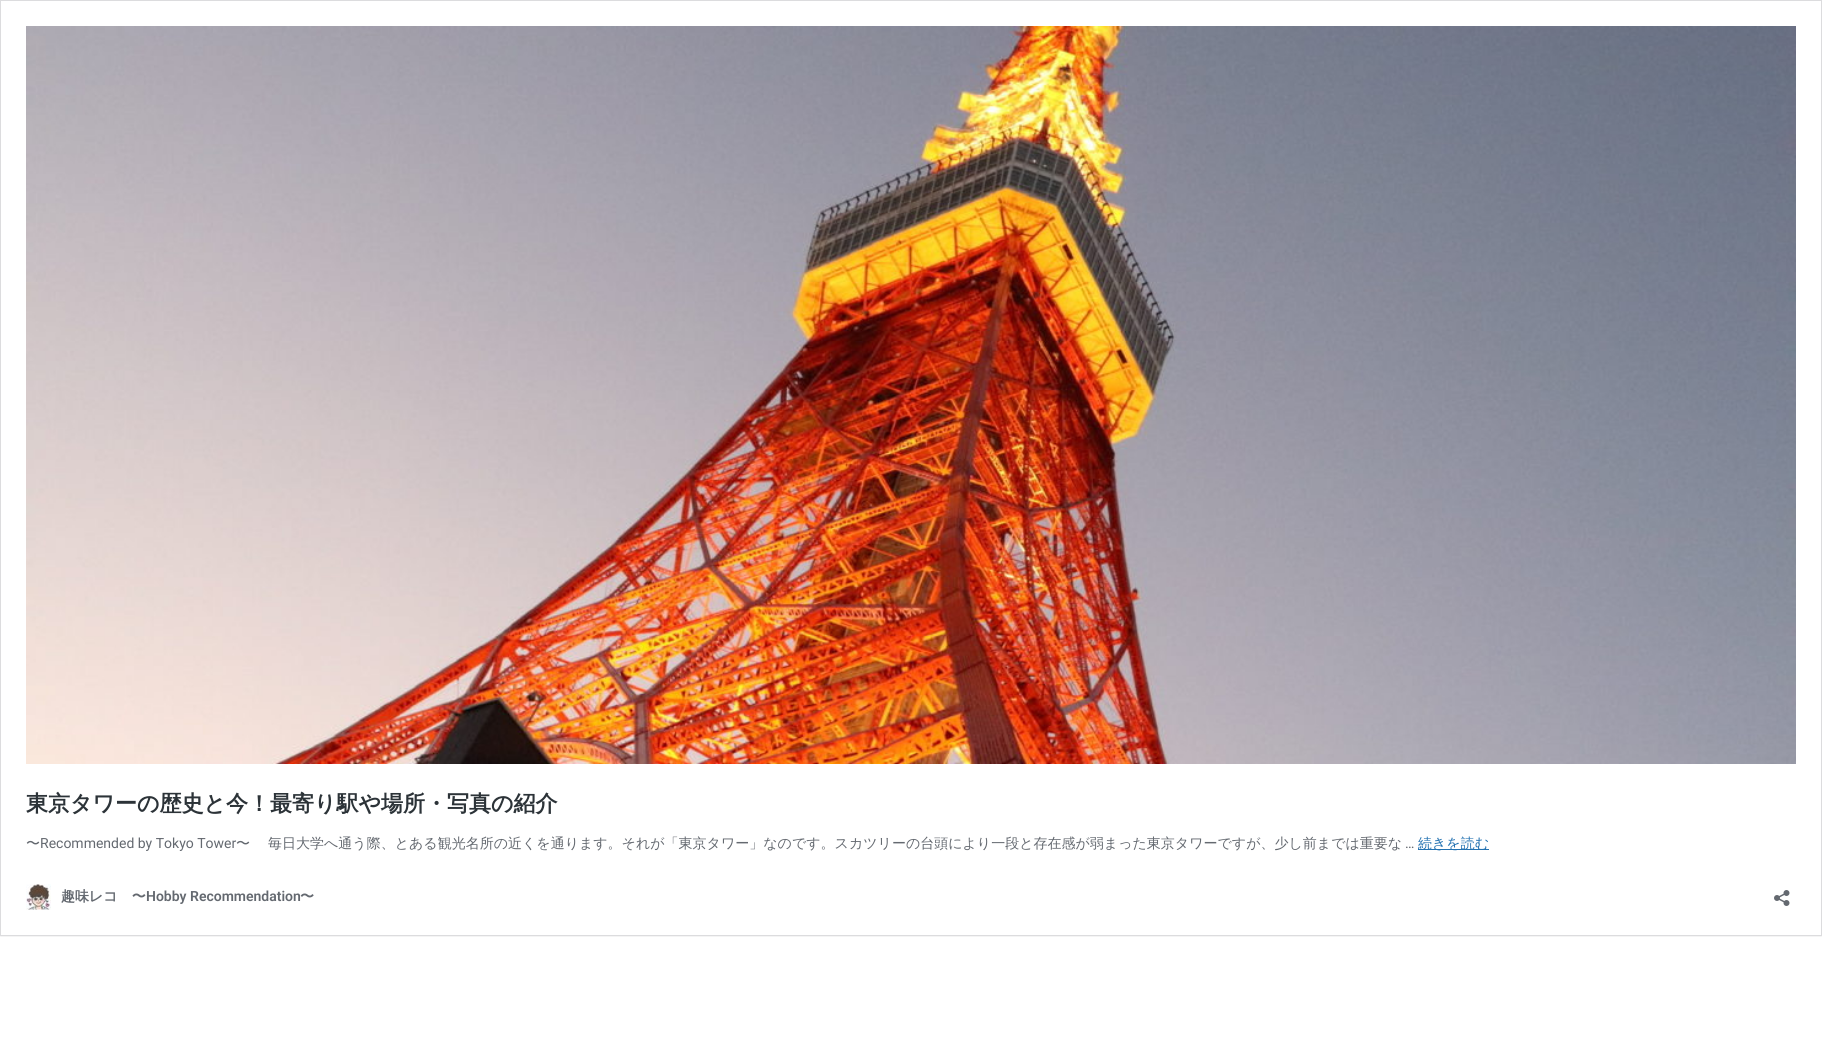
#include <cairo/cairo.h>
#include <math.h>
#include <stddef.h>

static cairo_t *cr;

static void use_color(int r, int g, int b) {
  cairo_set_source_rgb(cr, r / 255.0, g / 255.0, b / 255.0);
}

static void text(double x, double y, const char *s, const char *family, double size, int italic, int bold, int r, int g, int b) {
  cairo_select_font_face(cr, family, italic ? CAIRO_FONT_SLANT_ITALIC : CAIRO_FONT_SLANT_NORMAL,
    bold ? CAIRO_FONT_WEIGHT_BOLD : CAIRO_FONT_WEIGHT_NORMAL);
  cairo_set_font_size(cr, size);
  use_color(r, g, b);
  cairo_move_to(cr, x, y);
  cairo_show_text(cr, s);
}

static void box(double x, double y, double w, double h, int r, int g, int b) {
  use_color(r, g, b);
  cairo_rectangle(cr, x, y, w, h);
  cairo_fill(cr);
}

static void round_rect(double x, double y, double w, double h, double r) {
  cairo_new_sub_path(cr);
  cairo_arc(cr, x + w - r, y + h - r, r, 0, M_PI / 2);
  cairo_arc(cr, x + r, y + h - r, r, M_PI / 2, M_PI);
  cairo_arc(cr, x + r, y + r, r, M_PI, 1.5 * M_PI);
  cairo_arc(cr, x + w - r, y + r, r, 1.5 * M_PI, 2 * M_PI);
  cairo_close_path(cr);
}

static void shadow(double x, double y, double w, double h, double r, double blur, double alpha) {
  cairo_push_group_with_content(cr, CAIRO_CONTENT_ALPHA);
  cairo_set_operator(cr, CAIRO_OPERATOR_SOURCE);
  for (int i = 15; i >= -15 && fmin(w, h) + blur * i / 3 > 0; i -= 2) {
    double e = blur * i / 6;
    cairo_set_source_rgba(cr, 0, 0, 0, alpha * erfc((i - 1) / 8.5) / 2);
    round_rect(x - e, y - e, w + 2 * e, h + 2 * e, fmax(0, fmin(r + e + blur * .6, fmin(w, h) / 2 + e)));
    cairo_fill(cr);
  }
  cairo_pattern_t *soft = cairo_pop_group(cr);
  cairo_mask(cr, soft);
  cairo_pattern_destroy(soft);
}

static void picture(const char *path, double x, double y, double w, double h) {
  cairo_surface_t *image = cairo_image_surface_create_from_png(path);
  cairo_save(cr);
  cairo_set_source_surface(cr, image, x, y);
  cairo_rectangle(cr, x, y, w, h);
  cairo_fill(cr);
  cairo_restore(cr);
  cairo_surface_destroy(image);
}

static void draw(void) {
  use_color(255, 255, 255);
  cairo_paint(cr);
  cairo_save(cr);
  cairo_rectangle(cr, 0, 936, 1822, 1);
  cairo_clip(cr);
  use_color(0, 0, 0);
  shadow(0, 1, 1822, 936, 0, 0.5, 0.05);
  cairo_restore(cr);
  cairo_rectangle(cr, 0.5, 0.5, 1821, 935);
  use_color(220, 220, 222);
  cairo_set_line_width(cr, 1);
  cairo_stroke(cr);
  picture("img_01.png", 26, 26, 1770, 738);
  box(1418, 849, 71, 1, 34, 113, 177);
  picture("img_02.png", 26, 884, 25, 26);
  picture("img_03.png", 1774, 890, 16, 16);
  text(26, 811, "東京タワーの歴史と今！最寄り駅や場所・写真の紹介", "WenQuanYi Zen Hei", 22, 0, 1, 44, 51, 56);
  text(26, 848, "〜", "WenQuanYi Zen Hei Medium", 14, 0, 0, 100, 105, 112);
  text(40, 848, "Recommended by Tokyo Tower", "Roboto", 14, 0, 0, 100, 105, 112);
  text(236, 848, "〜", "WenQuanYi Zen Hei Medium", 14, 0, 0, 100, 105, 112);
  text(268, 848, "毎日大学へ通う際、とある観光名所の近くを通ります。それが「東京タワー」なのです。スカツリーの台頭により一段と存在感が弱まった東京タワーですが、少し前までは重要な", "WenQuanYi Zen Hei Medium", 14, 0, 0, 100, 105, 112);
  text(1418, 848, "続きを読む", "WenQuanYi Zen Hei Medium", 14, 0, 0, 34, 113, 177);
  text(1405, 848, "…", "Roboto", 14, 0, 0, 100, 105, 112);
  text(61, 901, "趣味レコ　〜", "WenQuanYi Zen Hei", 14, 0, 1, 100, 105, 112);
  text(146, 901, "Hobby Recommendation", "Roboto SemiBold", 14, 0, 0, 100, 105, 112);
  text(300, 901, "〜", "WenQuanYi Zen Hei", 14, 0, 1, 100, 105, 112);
}

int main(void) {
  cairo_surface_t *surface = cairo_image_surface_create(CAIRO_FORMAT_RGB24, 1822, 1044);
  cr = cairo_create(surface);
  cairo_font_options_t *options = cairo_font_options_create();
  cairo_font_options_set_hint_metrics(options, CAIRO_HINT_METRICS_OFF);
  cairo_font_options_set_hint_style(options, CAIRO_HINT_STYLE_NONE);
  cairo_set_font_options(cr, options);
  cairo_set_miter_limit(cr, 4);
  draw();
  cairo_surface_write_to_png(surface, "out.png");
  cairo_font_options_destroy(options);
  cairo_destroy(cr);
  cairo_surface_destroy(surface);
  return 0;
}
